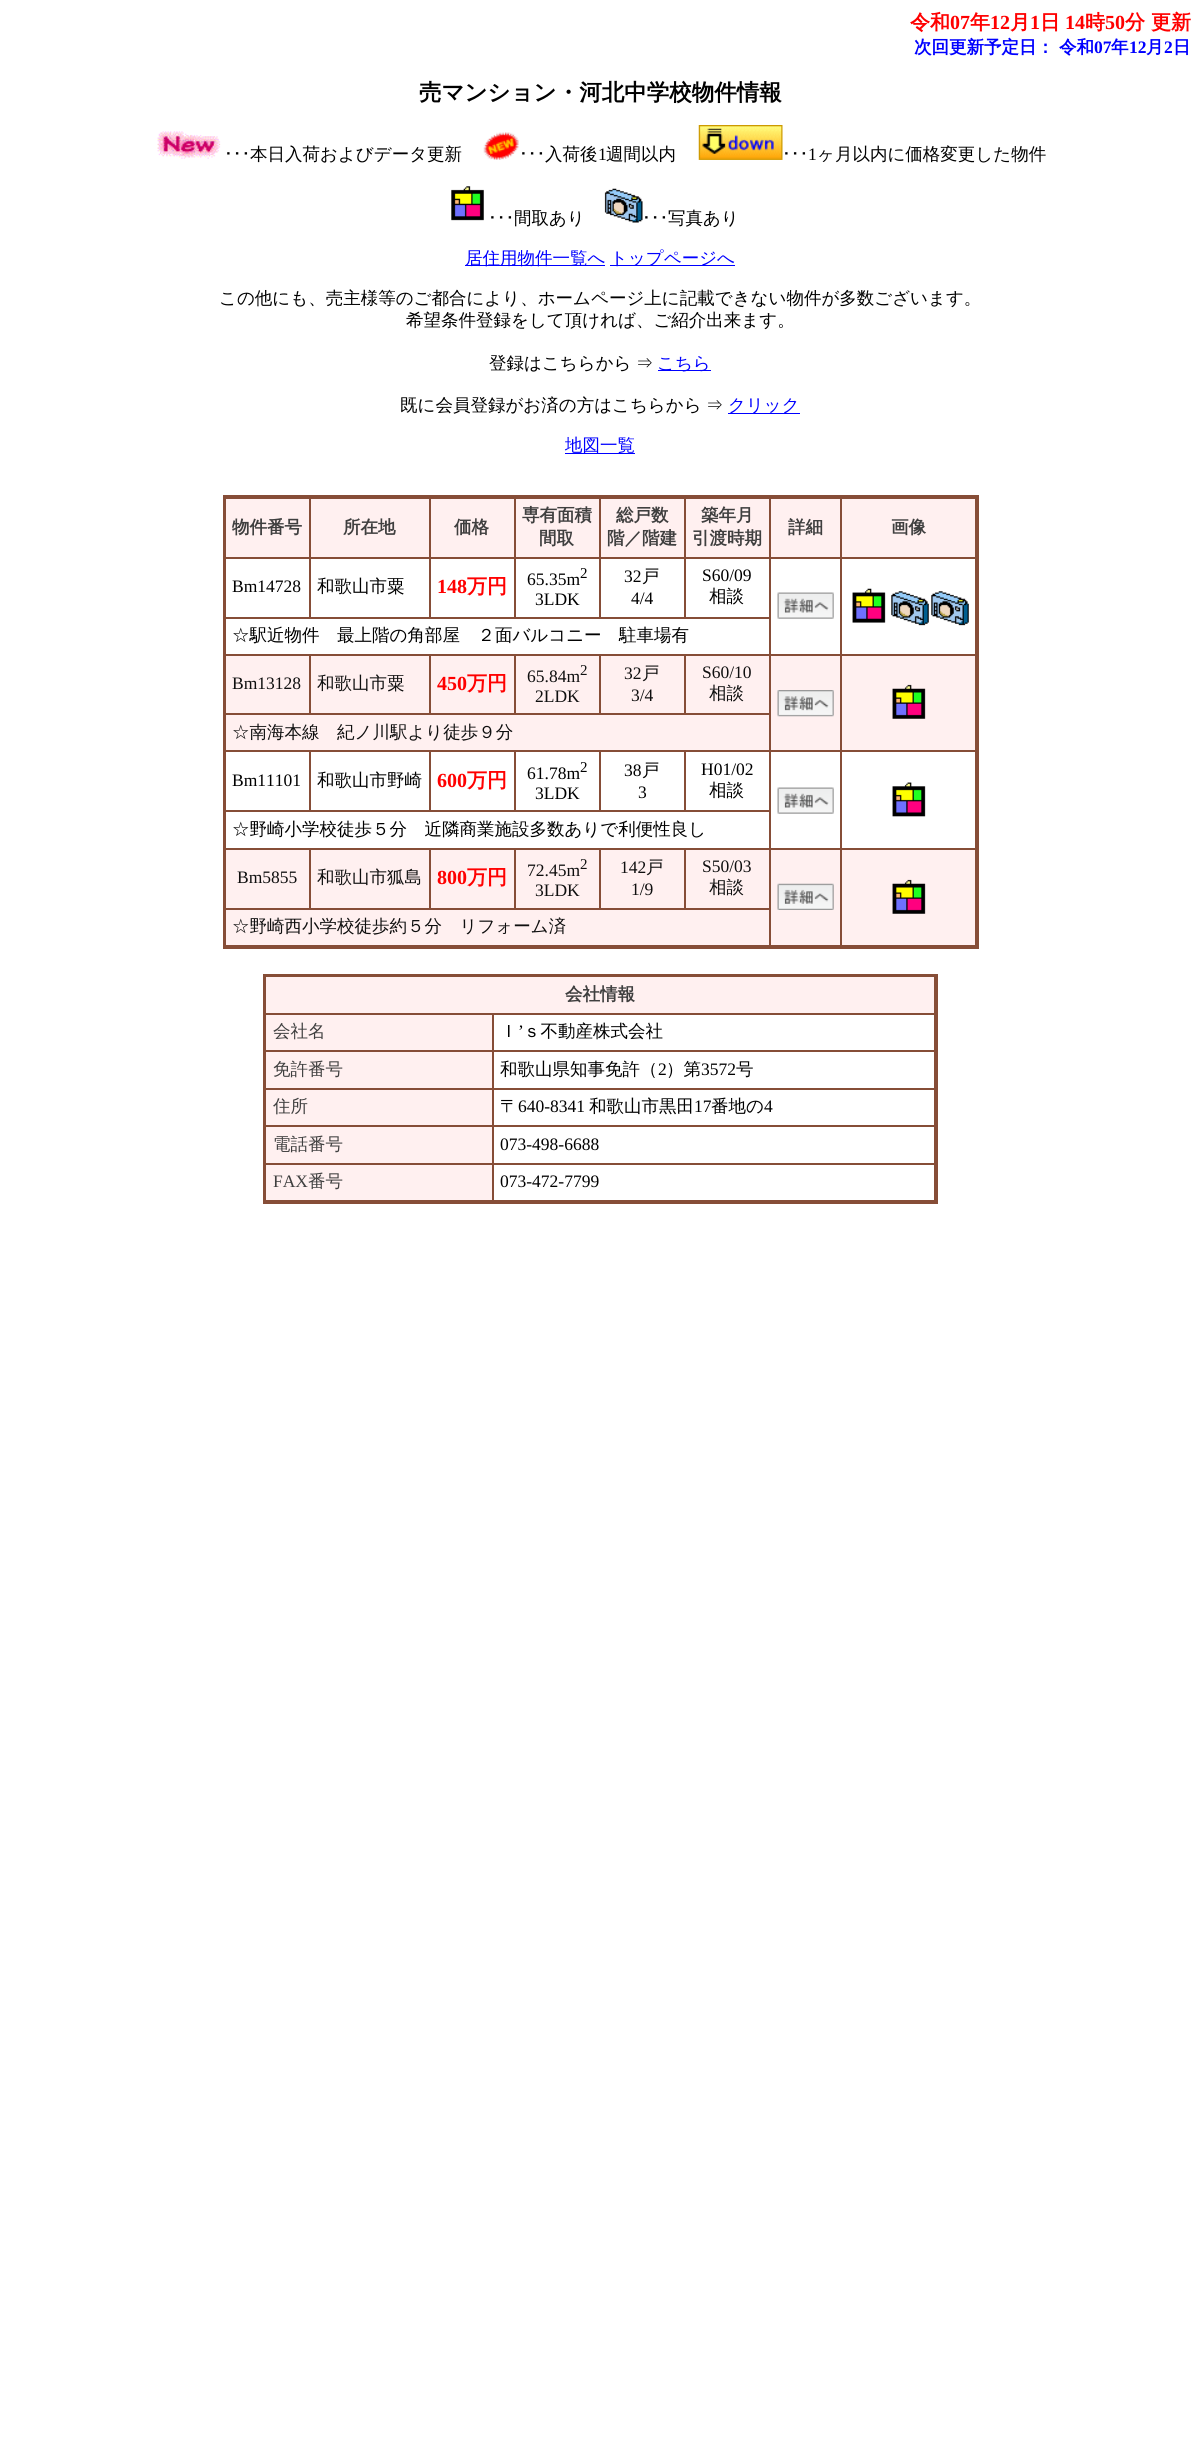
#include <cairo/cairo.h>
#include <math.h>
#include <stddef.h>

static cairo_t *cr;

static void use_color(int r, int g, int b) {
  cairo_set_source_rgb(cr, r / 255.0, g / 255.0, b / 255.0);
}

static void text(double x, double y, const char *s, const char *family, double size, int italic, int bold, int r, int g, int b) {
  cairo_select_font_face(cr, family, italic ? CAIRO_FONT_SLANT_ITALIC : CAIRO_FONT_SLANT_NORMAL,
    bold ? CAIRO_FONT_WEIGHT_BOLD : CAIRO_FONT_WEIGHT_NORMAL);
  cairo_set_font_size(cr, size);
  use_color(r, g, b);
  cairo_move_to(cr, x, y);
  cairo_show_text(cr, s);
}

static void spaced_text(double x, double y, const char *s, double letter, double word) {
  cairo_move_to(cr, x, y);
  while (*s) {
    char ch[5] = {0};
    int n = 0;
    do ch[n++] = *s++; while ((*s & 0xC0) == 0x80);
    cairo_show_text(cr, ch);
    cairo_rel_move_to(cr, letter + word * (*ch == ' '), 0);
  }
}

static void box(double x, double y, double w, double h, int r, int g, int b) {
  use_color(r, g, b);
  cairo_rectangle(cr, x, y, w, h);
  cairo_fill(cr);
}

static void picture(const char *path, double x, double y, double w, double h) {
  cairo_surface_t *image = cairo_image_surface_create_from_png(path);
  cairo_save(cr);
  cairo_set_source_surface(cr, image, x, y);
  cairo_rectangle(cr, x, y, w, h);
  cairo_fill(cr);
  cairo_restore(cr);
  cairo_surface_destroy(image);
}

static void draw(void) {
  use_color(255, 255, 255);
  cairo_paint(cr);
  picture("img_01.png", 157, 131, 64, 28);
  picture("img_02.png", 483, 132, 36, 28);
  picture("img_03.png", 698, 125, 85, 35);
  picture("img_04.png", 451, 186, 33, 35);
  picture("img_05.png", 604, 188, 39, 35);
  box(465, 265, 140, 1, 0, 0, 255);
  box(610, 265, 125, 1, 0, 0, 255);
  box(658, 370, 53, 1, 0, 0, 255);
  box(728, 413, 72, 1, 0, 0, 255);
  box(565, 453, 70, 1, 0, 0, 255);
  cairo_rectangle(cr, 224.5, 496.5, 753, 451);
  use_color(134, 77, 55);
  cairo_set_line_width(cr, 3);
  cairo_stroke(cr);
  use_color(255, 240, 240);
  cairo_rectangle(cr, 225.5, 498.5, 84, 59);
  cairo_fill_preserve(cr);
  use_color(134, 77, 55);
  cairo_set_line_width(cr, 1);
  cairo_stroke(cr);
  use_color(255, 240, 240);
  cairo_rectangle(cr, 310.5, 498.5, 119, 59);
  cairo_fill_preserve(cr);
  use_color(134, 77, 55);
  cairo_stroke(cr);
  use_color(255, 240, 240);
  cairo_rectangle(cr, 430.5, 498.5, 84, 59);
  cairo_fill_preserve(cr);
  use_color(134, 77, 55);
  cairo_stroke(cr);
  use_color(255, 240, 240);
  cairo_rectangle(cr, 515.5, 498.5, 84, 59);
  cairo_fill_preserve(cr);
  use_color(134, 77, 55);
  cairo_stroke(cr);
  use_color(255, 240, 240);
  cairo_rectangle(cr, 600.5, 498.5, 84, 59);
  cairo_fill_preserve(cr);
  use_color(134, 77, 55);
  cairo_stroke(cr);
  use_color(255, 240, 240);
  cairo_rectangle(cr, 685.5, 498.5, 84, 59);
  cairo_fill_preserve(cr);
  use_color(134, 77, 55);
  cairo_stroke(cr);
  use_color(255, 240, 240);
  cairo_rectangle(cr, 770.5, 498.5, 70, 59);
  cairo_fill_preserve(cr);
  use_color(134, 77, 55);
  cairo_stroke(cr);
  use_color(255, 240, 240);
  cairo_rectangle(cr, 841.5, 498.5, 134, 59);
  cairo_fill_preserve(cr);
  use_color(134, 77, 55);
  cairo_stroke(cr);
  cairo_rectangle(cr, 225.5, 558.5, 84, 59);
  cairo_stroke(cr);
  cairo_rectangle(cr, 310.5, 558.5, 119, 59);
  cairo_stroke(cr);
  cairo_rectangle(cr, 430.5, 558.5, 84, 59);
  cairo_stroke(cr);
  cairo_rectangle(cr, 515.5, 558.5, 84, 59);
  cairo_stroke(cr);
  cairo_rectangle(cr, 600.5, 558.5, 84, 59);
  cairo_stroke(cr);
  cairo_rectangle(cr, 685.5, 558.5, 84, 59);
  cairo_stroke(cr);
  cairo_rectangle(cr, 770.5, 558.5, 70, 96);
  cairo_stroke(cr);
  picture("img_06.png", 777, 592, 57, 27);
  cairo_rectangle(cr, 841.5, 558.5, 134, 96);
  cairo_stroke(cr);
  picture("img_07.png", 852, 588, 34, 35);
  picture("img_08.png", 891, 591, 38, 35);
  picture("img_08.png", 931, 591, 38, 35);
  cairo_rectangle(cr, 225.5, 618.5, 544, 36);
  cairo_stroke(cr);
  use_color(255, 240, 240);
  cairo_rectangle(cr, 225.5, 655.5, 84, 58);
  cairo_fill_preserve(cr);
  use_color(134, 77, 55);
  cairo_stroke(cr);
  use_color(255, 240, 240);
  cairo_rectangle(cr, 310.5, 655.5, 119, 58);
  cairo_fill_preserve(cr);
  use_color(134, 77, 55);
  cairo_stroke(cr);
  use_color(255, 240, 240);
  cairo_rectangle(cr, 430.5, 655.5, 84, 58);
  cairo_fill_preserve(cr);
  use_color(134, 77, 55);
  cairo_stroke(cr);
  use_color(255, 240, 240);
  cairo_rectangle(cr, 515.5, 655.5, 84, 58);
  cairo_fill_preserve(cr);
  use_color(134, 77, 55);
  cairo_stroke(cr);
  use_color(255, 240, 240);
  cairo_rectangle(cr, 600.5, 655.5, 84, 58);
  cairo_fill_preserve(cr);
  use_color(134, 77, 55);
  cairo_stroke(cr);
  use_color(255, 240, 240);
  cairo_rectangle(cr, 685.5, 655.5, 84, 58);
  cairo_fill_preserve(cr);
  use_color(134, 77, 55);
  cairo_stroke(cr);
  use_color(255, 240, 240);
  cairo_rectangle(cr, 770.5, 655.5, 70, 95);
  cairo_fill_preserve(cr);
  use_color(134, 77, 55);
  cairo_stroke(cr);
  picture("img_09.png", 777, 690, 57, 27);
  use_color(255, 240, 240);
  cairo_rectangle(cr, 841.5, 655.5, 134, 95);
  cairo_fill_preserve(cr);
  use_color(134, 77, 55);
  cairo_stroke(cr);
  picture("img_10.png", 892, 684, 34, 35);
  use_color(255, 240, 240);
  cairo_rectangle(cr, 225.5, 714.5, 544, 36);
  cairo_fill_preserve(cr);
  use_color(134, 77, 55);
  cairo_stroke(cr);
  cairo_rectangle(cr, 225.5, 751.5, 84, 59);
  cairo_stroke(cr);
  cairo_rectangle(cr, 310.5, 751.5, 119, 59);
  cairo_stroke(cr);
  cairo_rectangle(cr, 430.5, 751.5, 84, 59);
  cairo_stroke(cr);
  cairo_rectangle(cr, 515.5, 751.5, 84, 59);
  cairo_stroke(cr);
  cairo_rectangle(cr, 600.5, 751.5, 84, 59);
  cairo_stroke(cr);
  cairo_rectangle(cr, 685.5, 751.5, 84, 59);
  cairo_stroke(cr);
  cairo_rectangle(cr, 770.5, 751.5, 70, 97);
  cairo_stroke(cr);
  picture("img_06.png", 777, 787, 57, 27);
  cairo_rectangle(cr, 841.5, 751.5, 134, 97);
  cairo_stroke(cr);
  picture("img_11.png", 892, 782, 34, 35);
  cairo_rectangle(cr, 225.5, 811.5, 544, 37);
  cairo_stroke(cr);
  use_color(255, 240, 240);
  cairo_rectangle(cr, 225.5, 849.5, 84, 59);
  cairo_fill_preserve(cr);
  use_color(134, 77, 55);
  cairo_stroke(cr);
  use_color(255, 240, 240);
  cairo_rectangle(cr, 310.5, 849.5, 119, 59);
  cairo_fill_preserve(cr);
  use_color(134, 77, 55);
  cairo_stroke(cr);
  use_color(255, 240, 240);
  cairo_rectangle(cr, 430.5, 849.5, 84, 59);
  cairo_fill_preserve(cr);
  use_color(134, 77, 55);
  cairo_stroke(cr);
  use_color(255, 240, 240);
  cairo_rectangle(cr, 515.5, 849.5, 84, 59);
  cairo_fill_preserve(cr);
  use_color(134, 77, 55);
  cairo_stroke(cr);
  use_color(255, 240, 240);
  cairo_rectangle(cr, 600.5, 849.5, 84, 59);
  cairo_fill_preserve(cr);
  use_color(134, 77, 55);
  cairo_stroke(cr);
  use_color(255, 240, 240);
  cairo_rectangle(cr, 685.5, 849.5, 84, 59);
  cairo_fill_preserve(cr);
  use_color(134, 77, 55);
  cairo_stroke(cr);
  use_color(255, 240, 240);
  cairo_rectangle(cr, 770.5, 849.5, 70, 96);
  cairo_fill_preserve(cr);
  use_color(134, 77, 55);
  cairo_stroke(cr);
  picture("img_12.png", 777, 883, 57, 27);
  use_color(255, 240, 240);
  cairo_rectangle(cr, 841.5, 849.5, 134, 96);
  cairo_fill_preserve(cr);
  use_color(134, 77, 55);
  cairo_stroke(cr);
  picture("img_10.png", 892, 879, 34, 35);
  use_color(255, 240, 240);
  cairo_rectangle(cr, 225.5, 909.5, 544, 36);
  cairo_fill_preserve(cr);
  use_color(134, 77, 55);
  cairo_stroke(cr);
  cairo_rectangle(cr, 264.5, 975.5, 672, 227);
  cairo_set_line_width(cr, 3);
  cairo_stroke(cr);
  use_color(255, 240, 240);
  cairo_rectangle(cr, 265.5, 976.5, 669, 37);
  cairo_fill_preserve(cr);
  use_color(134, 77, 55);
  cairo_set_line_width(cr, 1);
  cairo_stroke(cr);
  use_color(255, 240, 240);
  cairo_rectangle(cr, 265.5, 1014.5, 227, 36);
  cairo_fill_preserve(cr);
  use_color(134, 77, 55);
  cairo_stroke(cr);
  cairo_rectangle(cr, 493.5, 1014.5, 441, 36);
  cairo_stroke(cr);
  use_color(255, 240, 240);
  cairo_rectangle(cr, 265.5, 1051.5, 227, 37);
  cairo_fill_preserve(cr);
  use_color(134, 77, 55);
  cairo_stroke(cr);
  cairo_rectangle(cr, 493.5, 1051.5, 441, 37);
  cairo_stroke(cr);
  use_color(255, 240, 240);
  cairo_rectangle(cr, 265.5, 1089.5, 227, 36);
  cairo_fill_preserve(cr);
  use_color(134, 77, 55);
  cairo_stroke(cr);
  cairo_rectangle(cr, 493.5, 1089.5, 441, 36);
  cairo_stroke(cr);
  use_color(255, 240, 240);
  cairo_rectangle(cr, 265.5, 1126.5, 227, 37);
  cairo_fill_preserve(cr);
  use_color(134, 77, 55);
  cairo_stroke(cr);
  cairo_rectangle(cr, 493.5, 1126.5, 441, 37);
  cairo_stroke(cr);
  use_color(255, 240, 240);
  cairo_rectangle(cr, 265.5, 1164.5, 227, 36);
  cairo_fill_preserve(cr);
  use_color(134, 77, 55);
  cairo_stroke(cr);
  cairo_rectangle(cr, 493.5, 1164.5, 441, 36);
  cairo_stroke(cr);
  text(910, 29, "令和", "WenQuanYi Zen Hei", 20, 0, 1, 255, 0, 0);
  text(950, 29, "07", "Liberation Serif", 20, 0, 1, 255, 0, 0);
  text(970, 29, "年", "WenQuanYi Zen Hei", 20, 0, 1, 255, 0, 0);
  text(990, 29, "12", "Liberation Serif", 20, 0, 1, 255, 0, 0);
  text(1010, 29, "月", "WenQuanYi Zen Hei", 20, 0, 1, 255, 0, 0);
  text(1030, 29, "1", "Liberation Serif", 20, 0, 1, 255, 0, 0);
  text(1040, 29, "日", "WenQuanYi Zen Hei", 20, 0, 1, 255, 0, 0);
  text(1065, 29, "14", "Liberation Serif", 20, 0, 1, 255, 0, 0);
  text(1085, 29, "時", "WenQuanYi Zen Hei", 20, 0, 1, 255, 0, 0);
  text(1105, 29, "50", "Liberation Serif", 20, 0, 1, 255, 0, 0);
  text(1125, 29, "分 更新", "WenQuanYi Zen Hei", 20, 0, 1, 255, 0, 0);
  text(914, 53, "次回更新予定日：", "WenQuanYi Zen Hei", 17.5, 0, 1, 0, 0, 255);
  text(1059, 53, "令和", "WenQuanYi Zen Hei", 17.5, 0, 1, 0, 0, 255);
  text(1094, 53, "07", "Liberation Serif", 17.5, 0, 1, 0, 0, 255);
  text(1111, 53, "年", "WenQuanYi Zen Hei", 17.5, 0, 1, 0, 0, 255);
  text(1129, 53, "12", "Liberation Serif", 17.5, 0, 1, 0, 0, 255);
  text(1146, 53, "月", "WenQuanYi Zen Hei", 17.5, 0, 1, 0, 0, 255);
  text(1164, 53, "2", "Liberation Serif", 17.5, 0, 1, 0, 0, 255);
  text(1173, 53, "日", "WenQuanYi Zen Hei", 17.5, 0, 1, 0, 0, 255);
  text(419, 100, "売マンション・河北中学校物件情報", "WenQuanYi Zen Hei", 22.5, 0, 1, 0, 0, 0);
  text(224, 160, "･･･", "IPAPGothic", 17.5, 0, 0, 0, 0, 0);
  text(250, 160, "本日入荷およびデータ更新", "WenQuanYi Zen Hei Medium", 17.5, 0, 0, 0, 0, 0);
  text(519, 160, "･･･", "IPAPGothic", 17.5, 0, 0, 0, 0, 0);
  text(545, 160, "入荷後", "WenQuanYi Zen Hei Medium", 17.5, 0, 0, 0, 0, 0);
  text(598, 160, "1", "Liberation Serif", 17.5, 0, 0, 0, 0, 0);
  text(606, 160, "週間以内", "WenQuanYi Zen Hei Medium", 17.5, 0, 0, 0, 0, 0);
  text(782, 160, "･･･", "IPAPGothic", 17.5, 0, 0, 0, 0, 0);
  text(808, 160, "1", "Liberation Serif", 17.5, 0, 0, 0, 0, 0);
  text(817, 160, "ヶ月以内に価格変更した物件", "WenQuanYi Zen Hei Medium", 17.5, 0, 0, 0, 0, 0);
  text(488, 224, "･･･", "IPAPGothic", 17.5, 0, 0, 0, 0, 0);
  text(514, 224, "間取あり", "WenQuanYi Zen Hei Medium", 17.5, 0, 0, 0, 0, 0);
  text(642, 224, "･･･", "IPAPGothic", 17.5, 0, 0, 0, 0, 0);
  text(668, 224, "写真あり", "WenQuanYi Zen Hei Medium", 17.5, 0, 0, 0, 0, 0);
  text(465, 264, "居住用物件一覧へ", "WenQuanYi Zen Hei Medium", 17.5, 0, 0, 0, 0, 255);
  text(610, 264, "トップページへ", "WenQuanYi Zen Hei Medium", 17.5, 0, 0, 0, 0, 255);
  text(219, 304, "この他にも、売主様等のご都合により、ホームページ上に記載できない物件が多数ございます。", "WenQuanYi Zen Hei Medium", 17.5, 0, 0, 0, 0, 0);
  text(406, 326, "希望条件登録をして頂ければ、ご紹介出来ます。", "WenQuanYi Zen Hei Medium", 17.5, 0, 0, 0, 0, 0);
  spaced_text(489, 369, "登録はこちらから ⇒", 0, -1);
  text(657, 369, "こちら", "WenQuanYi Zen Hei Medium", 17.5, 0, 0, 0, 0, 255);
  use_color(0, 0, 0);
  spaced_text(400, 411, "既に会員登録がお済の方はこちらから ⇒", 0, -1);
  text(728, 411, "クリック", "WenQuanYi Zen Hei Medium", 17.5, 0, 0, 0, 0, 255);
  text(565, 451, "地図一覧", "WenQuanYi Zen Hei Medium", 17.5, 0, 0, 0, 0, 255);
  text(232, 533, "物件番号", "WenQuanYi Zen Hei", 17.5, 0, 1, 63, 63, 63);
  text(343, 533, "所在地", "WenQuanYi Zen Hei", 17.5, 0, 1, 63, 63, 63);
  text(454, 533, "価格", "WenQuanYi Zen Hei", 17.5, 0, 1, 63, 63, 63);
  text(522, 521, "専有面積", "WenQuanYi Zen Hei", 17.5, 0, 1, 63, 63, 63);
  text(539, 544, "間取", "WenQuanYi Zen Hei", 17.5, 0, 1, 63, 63, 63);
  text(616, 521, "総戸数", "WenQuanYi Zen Hei", 17.5, 0, 1, 63, 63, 63);
  text(607, 544, "階／階建", "WenQuanYi Zen Hei", 17.5, 0, 1, 63, 63, 63);
  text(701, 521, "築年月", "WenQuanYi Zen Hei", 17.5, 0, 1, 63, 63, 63);
  text(692, 544, "引渡時期", "WenQuanYi Zen Hei", 17.5, 0, 1, 63, 63, 63);
  text(788, 533, "詳細", "WenQuanYi Zen Hei", 17.5, 0, 1, 63, 63, 63);
  text(891, 533, "画像", "WenQuanYi Zen Hei", 17.5, 0, 1, 63, 63, 63);
  text(232, 592, "Bm14728", "Liberation Serif", 17.5, 0, 0, 0, 0, 0);
  text(317, 592, "和歌山市粟", "WenQuanYi Zen Hei Medium", 17.5, 0, 0, 0, 0, 0);
  text(437, 593, "148", "Liberation Serif", 20, 0, 1, 255, 0, 0);
  text(467, 593, "万円", "WenQuanYi Zen Hei", 20, 0, 1, 255, 0, 0);
  text(527, 585, "65.35m", "Liberation Serif", 17.5, 0, 0, 0, 0, 0);
  text(580, 578, "2", "Liberation Serif", 15, 0, 0, 0, 0, 0);
  text(535, 605, "3LDK", "Liberation Serif", 17.5, 0, 0, 0, 0, 0);
  text(624, 582, "32", "Liberation Serif", 17.5, 0, 0, 0, 0, 0);
  text(642, 582, "戸", "WenQuanYi Zen Hei Medium", 17.5, 0, 0, 0, 0, 0);
  text(631, 604, "4/4", "Liberation Serif", 17.5, 0, 0, 0, 0, 0);
  text(702, 581, "S60/09", "Liberation Serif", 17.5, 0, 0, 0, 0, 0);
  text(709, 602, "相談", "WenQuanYi Zen Hei Medium", 17.5, 0, 0, 0, 0, 0);
  text(232, 641, "☆駅近物件　最上階の角部屋　２面バルコニー　駐車場有", "WenQuanYi Zen Hei Medium", 17.5, 0, 0, 0, 0, 0);
  text(232, 689, "Bm13128", "Liberation Serif", 17.5, 0, 0, 15, 15, 15);
  text(317, 689, "和歌山市粟", "WenQuanYi Zen Hei Medium", 17.5, 0, 0, 15, 15, 15);
  text(437, 690, "450", "Liberation Serif", 20, 0, 1, 255, 0, 0);
  text(467, 690, "万円", "WenQuanYi Zen Hei", 20, 0, 1, 255, 0, 0);
  text(527, 682, "65.84m", "Liberation Serif", 17.5, 0, 0, 15, 15, 15);
  text(580, 675, "2", "Liberation Serif", 15, 0, 0, 15, 15, 15);
  text(535, 702, "2LDK", "Liberation Serif", 17.5, 0, 0, 15, 15, 15);
  text(624, 679, "32", "Liberation Serif", 17.5, 0, 0, 15, 15, 15);
  text(642, 679, "戸", "WenQuanYi Zen Hei Medium", 17.5, 0, 0, 15, 15, 15);
  text(631, 701, "3/4", "Liberation Serif", 17.5, 0, 0, 15, 15, 15);
  text(702, 678, "S60/10", "Liberation Serif", 17.5, 0, 0, 15, 15, 15);
  text(709, 699, "相談", "WenQuanYi Zen Hei Medium", 17.5, 0, 0, 15, 15, 15);
  text(232, 738, "☆南海本線　紀ノ川駅より徒歩９分", "WenQuanYi Zen Hei Medium", 17.5, 0, 0, 15, 15, 15);
  text(232, 786, "Bm11101", "Liberation Serif", 17.5, 0, 0, 0, 0, 0);
  text(317, 786, "和歌山市野崎", "WenQuanYi Zen Hei Medium", 17.5, 0, 0, 0, 0, 0);
  text(437, 787, "600", "Liberation Serif", 20, 0, 1, 255, 0, 0);
  text(467, 787, "万円", "WenQuanYi Zen Hei", 20, 0, 1, 255, 0, 0);
  text(527, 779, "61.78m", "Liberation Serif", 17.5, 0, 0, 0, 0, 0);
  text(580, 772, "2", "Liberation Serif", 15, 0, 0, 0, 0, 0);
  text(535, 799, "3LDK", "Liberation Serif", 17.5, 0, 0, 0, 0, 0);
  text(624, 776, "38", "Liberation Serif", 17.5, 0, 0, 0, 0, 0);
  text(642, 776, "戸", "WenQuanYi Zen Hei Medium", 17.5, 0, 0, 0, 0, 0);
  text(638, 798, "3", "Liberation Serif", 17.5, 0, 0, 0, 0, 0);
  text(701, 775, "H01/02", "Liberation Serif", 17.5, 0, 0, 0, 0, 0);
  text(709, 796, "相談", "WenQuanYi Zen Hei Medium", 17.5, 0, 0, 0, 0, 0);
  text(232, 835, "☆野崎小学校徒歩５分　近隣商業施設多数ありで利便性良し", "WenQuanYi Zen Hei Medium", 17.5, 0, 0, 0, 0, 0);
  text(237, 883, "Bm5855", "Liberation Serif", 17.5, 0, 0, 15, 15, 15);
  text(317, 883, "和歌山市狐島", "WenQuanYi Zen Hei Medium", 17.5, 0, 0, 15, 15, 15);
  text(437, 884, "800", "Liberation Serif", 20, 0, 1, 255, 0, 0);
  text(467, 884, "万円", "WenQuanYi Zen Hei", 20, 0, 1, 255, 0, 0);
  text(527, 876, "72.45m", "Liberation Serif", 17.5, 0, 0, 15, 15, 15);
  text(580, 869, "2", "Liberation Serif", 15, 0, 0, 15, 15, 15);
  text(535, 896, "3LDK", "Liberation Serif", 17.5, 0, 0, 15, 15, 15);
  text(620, 873, "142", "Liberation Serif", 17.5, 0, 0, 15, 15, 15);
  text(646, 873, "戸", "WenQuanYi Zen Hei Medium", 17.5, 0, 0, 15, 15, 15);
  text(631, 895, "1/9", "Liberation Serif", 17.5, 0, 0, 15, 15, 15);
  text(702, 872, "S50/03", "Liberation Serif", 17.5, 0, 0, 15, 15, 15);
  text(709, 893, "相談", "WenQuanYi Zen Hei Medium", 17.5, 0, 0, 15, 15, 15);
  text(232, 932, "☆野崎西小学校徒歩約５分　リフォーム済", "WenQuanYi Zen Hei Medium", 17.5, 0, 0, 15, 15, 15);
  text(565, 1000, "会社情報", "WenQuanYi Zen Hei", 17.5, 0, 1, 63, 63, 63);
  text(273, 1037, "会社名", "WenQuanYi Zen Hei Medium", 17.5, 0, 0, 63, 63, 63);
  text(500, 1037, "Ｉ", "WenQuanYi Zen Hei Medium", 17.5, 0, 0, 0, 0, 0);
  text(518, 1037, "’", "Liberation Serif", 17.5, 0, 0, 0, 0, 0);
  text(523, 1037, "ｓ不動産株式会社", "WenQuanYi Zen Hei Medium", 17.5, 0, 0, 0, 0, 0);
  text(273, 1075, "免許番号", "WenQuanYi Zen Hei Medium", 17.5, 0, 0, 63, 63, 63);
  text(500, 1075, "和歌山県知事免許（", "WenQuanYi Zen Hei Medium", 17.5, 0, 0, 0, 0, 0);
  text(658, 1075, "2", "Liberation Serif", 17.5, 0, 0, 0, 0, 0);
  text(666, 1075, "）第", "WenQuanYi Zen Hei Medium", 17.5, 0, 0, 0, 0, 0);
  text(701, 1075, "3572", "Liberation Serif", 17.5, 0, 0, 0, 0, 0);
  text(736, 1075, "号", "WenQuanYi Zen Hei Medium", 17.5, 0, 0, 0, 0, 0);
  text(273, 1112, "住所", "WenQuanYi Zen Hei Medium", 17.5, 0, 0, 63, 63, 63);
  text(500, 1112, "〒", "WenQuanYi Zen Hei Medium", 17.5, 0, 0, 0, 0, 0);
  text(518, 1112, "640-8341", "Liberation Serif", 17.5, 0, 0, 0, 0, 0);
  text(589, 1112, "和歌山市黒田", "WenQuanYi Zen Hei Medium", 17.5, 0, 0, 0, 0, 0);
  text(694, 1112, "17", "Liberation Serif", 17.5, 0, 0, 0, 0, 0);
  text(711, 1112, "番地の", "WenQuanYi Zen Hei Medium", 17.5, 0, 0, 0, 0, 0);
  text(764, 1112, "4", "Liberation Serif", 17.5, 0, 0, 0, 0, 0);
  text(273, 1150, "電話番号", "WenQuanYi Zen Hei Medium", 17.5, 0, 0, 63, 63, 63);
  text(500, 1150, "073-498-6688", "Liberation Serif", 17.5, 0, 0, 0, 0, 0);
  text(273, 1187, "FAX", "Liberation Serif", 17.5, 0, 0, 63, 63, 63);
  text(308, 1187, "番号", "WenQuanYi Zen Hei Medium", 17.5, 0, 0, 63, 63, 63);
  text(500, 1187, "073-472-7799", "Liberation Serif", 17.5, 0, 0, 0, 0, 0);
}

int main(void) {
  cairo_surface_t *surface = cairo_image_surface_create(CAIRO_FORMAT_RGB24, 1200, 2461);
  cr = cairo_create(surface);
  cairo_font_options_t *options = cairo_font_options_create();
  cairo_font_options_set_hint_metrics(options, CAIRO_HINT_METRICS_OFF);
  cairo_font_options_set_hint_style(options, CAIRO_HINT_STYLE_NONE);
  cairo_set_font_options(cr, options);
  cairo_set_miter_limit(cr, 4);
  draw();
  cairo_surface_write_to_png(surface, "out.png");
  cairo_font_options_destroy(options);
  cairo_destroy(cr);
  cairo_surface_destroy(surface);
  return 0;
}
